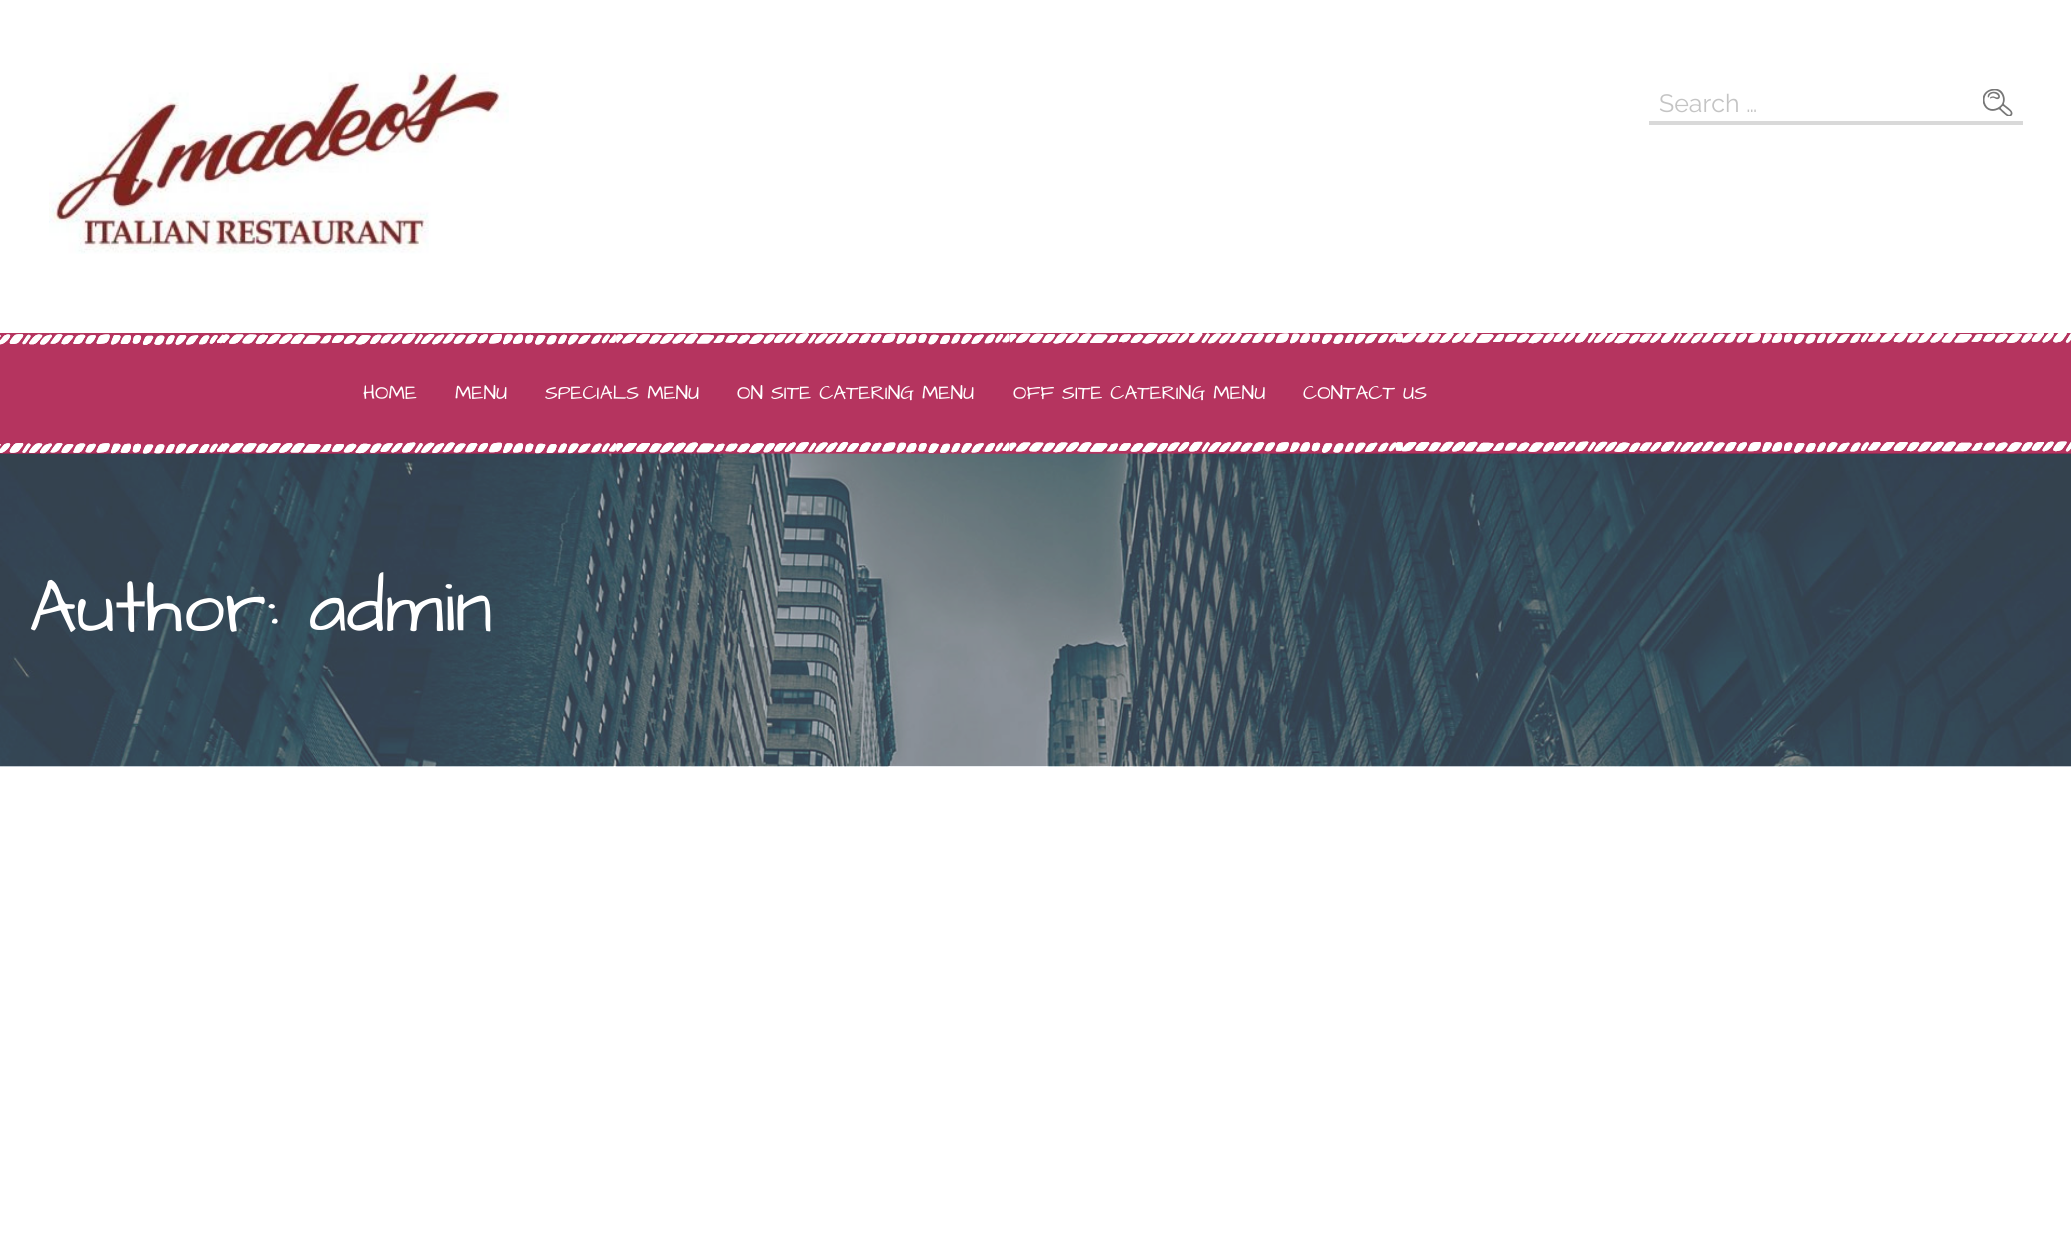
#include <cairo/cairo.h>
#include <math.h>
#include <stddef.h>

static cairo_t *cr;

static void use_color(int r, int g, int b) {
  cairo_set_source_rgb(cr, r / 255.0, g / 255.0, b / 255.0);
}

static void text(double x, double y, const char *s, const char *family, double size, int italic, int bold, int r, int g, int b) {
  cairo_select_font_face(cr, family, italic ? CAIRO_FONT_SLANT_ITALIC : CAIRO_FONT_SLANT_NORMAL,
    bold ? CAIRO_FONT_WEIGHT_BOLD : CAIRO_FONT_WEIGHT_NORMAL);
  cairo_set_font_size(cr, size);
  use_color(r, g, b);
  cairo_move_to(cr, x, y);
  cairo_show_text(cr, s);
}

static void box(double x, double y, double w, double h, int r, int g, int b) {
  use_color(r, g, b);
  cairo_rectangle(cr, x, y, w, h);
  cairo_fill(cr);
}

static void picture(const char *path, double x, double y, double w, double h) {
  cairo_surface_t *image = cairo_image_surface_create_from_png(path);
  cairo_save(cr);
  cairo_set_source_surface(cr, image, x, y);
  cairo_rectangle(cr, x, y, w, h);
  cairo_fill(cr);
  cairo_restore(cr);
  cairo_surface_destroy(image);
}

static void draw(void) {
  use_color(255, 255, 255);
  cairo_paint(cr);
  picture("img_01.png", 49, 63, 460, 191);
  box(1649, 121, 374, 4, 217, 217, 217);
  picture("img_02.png", 1983, 89, 30, 27);
  box(0, 333, 2071, 121, 181, 52, 95);
  picture("img_03.png", 0, 333, 2071, 12);
  picture("img_05.png", 0, 453, 2071, 314);
  picture("img_04.png", 0, 441, 2071, 13);
  text(1659, 112, "Search …", "Raleway", 25, 0, 0, 196, 196, 196);
  text(363, 399, "HOME", "Architects Daughter", 20, 0, 0, 255, 255, 255);
  text(455, 399, "MENU", "Architects Daughter", 20, 0, 0, 255, 255, 255);
  text(545, 399, "SPECIALS MENU", "Architects Daughter", 20, 0, 0, 255, 255, 255);
  text(737, 399, "ON SITE CATERING MENU", "Architects Daughter", 20, 0, 0, 255, 255, 255);
  text(1013, 399, "OFF SITE CATERING MENU", "Architects Daughter", 20, 0, 0, 255, 255, 255);
  text(1303, 399, "CONTACT US", "Architects Daughter", 20, 0, 0, 255, 255, 255);
  text(29, 631, "Author: admin", "Architects Daughter", 75, 0, 0, 255, 255, 255);
}

int main(void) {
  cairo_surface_t *surface = cairo_image_surface_create(CAIRO_FORMAT_RGB24, 2071, 1255);
  cr = cairo_create(surface);
  cairo_font_options_t *options = cairo_font_options_create();
  cairo_font_options_set_hint_metrics(options, CAIRO_HINT_METRICS_OFF);
  cairo_font_options_set_hint_style(options, CAIRO_HINT_STYLE_NONE);
  cairo_set_font_options(cr, options);
  cairo_set_miter_limit(cr, 4);
  draw();
  cairo_surface_write_to_png(surface, "out.png");
  cairo_font_options_destroy(options);
  cairo_destroy(cr);
  cairo_surface_destroy(surface);
  return 0;
}
